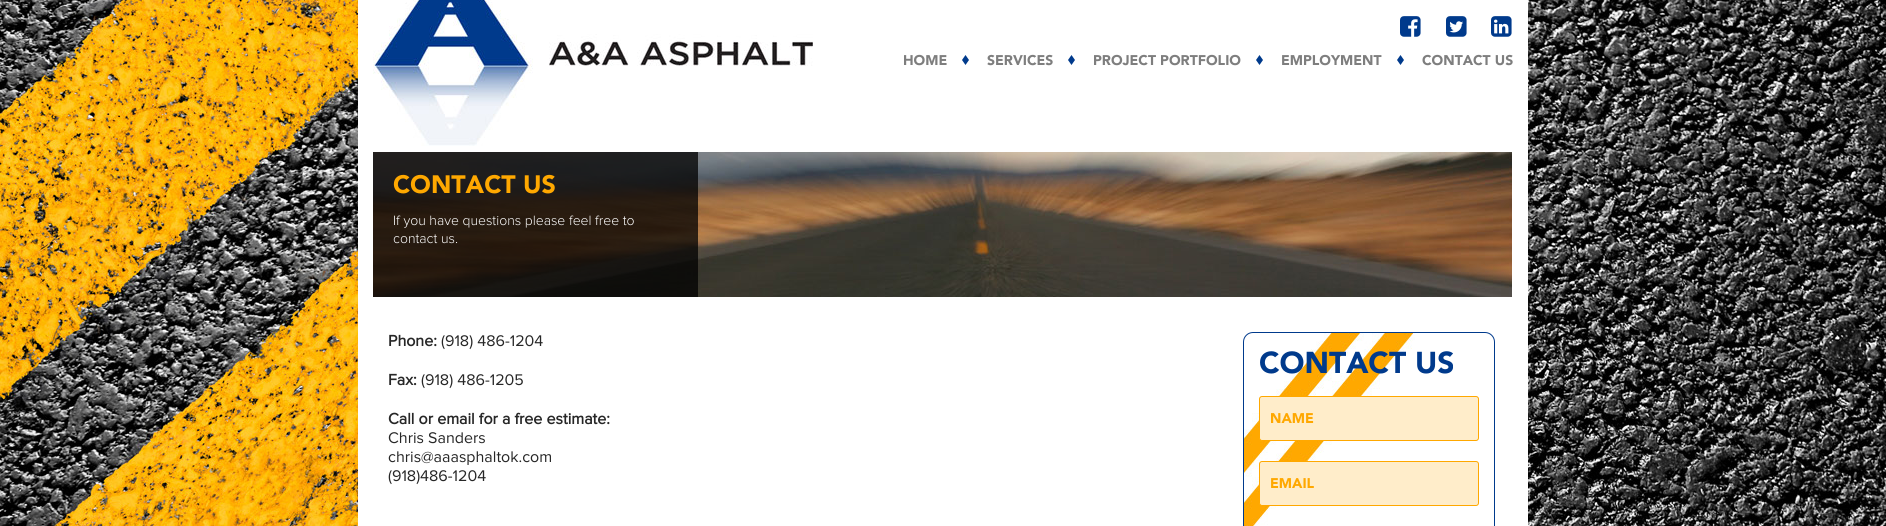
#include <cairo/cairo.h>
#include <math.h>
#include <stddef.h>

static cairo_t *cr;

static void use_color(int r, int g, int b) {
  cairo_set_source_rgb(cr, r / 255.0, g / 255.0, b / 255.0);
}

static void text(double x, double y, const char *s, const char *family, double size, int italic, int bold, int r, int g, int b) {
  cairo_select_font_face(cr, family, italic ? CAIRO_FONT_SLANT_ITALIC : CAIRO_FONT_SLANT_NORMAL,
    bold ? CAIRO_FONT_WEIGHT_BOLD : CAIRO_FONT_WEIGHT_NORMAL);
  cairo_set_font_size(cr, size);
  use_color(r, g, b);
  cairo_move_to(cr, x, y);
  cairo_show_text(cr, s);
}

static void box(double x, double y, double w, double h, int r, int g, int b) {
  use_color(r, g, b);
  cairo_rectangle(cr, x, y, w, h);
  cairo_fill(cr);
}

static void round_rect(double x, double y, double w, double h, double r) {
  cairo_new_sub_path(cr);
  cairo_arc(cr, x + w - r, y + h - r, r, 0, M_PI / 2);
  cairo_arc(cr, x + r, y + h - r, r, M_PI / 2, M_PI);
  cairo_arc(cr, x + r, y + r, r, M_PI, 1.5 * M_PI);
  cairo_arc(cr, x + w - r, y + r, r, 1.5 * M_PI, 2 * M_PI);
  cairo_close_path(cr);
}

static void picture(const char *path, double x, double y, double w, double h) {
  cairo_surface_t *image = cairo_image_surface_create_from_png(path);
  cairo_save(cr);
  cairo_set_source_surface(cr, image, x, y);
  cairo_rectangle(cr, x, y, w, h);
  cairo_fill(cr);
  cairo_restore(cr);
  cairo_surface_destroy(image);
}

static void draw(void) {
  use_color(255, 255, 255);
  cairo_paint(cr);
  picture("img_01.png", 0, 477, 1886, 49);
  picture("img_02.png", 0, 0, 1886, 477);
  box(358, 0, 1170, 526, 255, 255, 255);
  picture("img_03.png", 373, 0, 440, 146);
  picture("img_04.png", 1400, 16, 21, 21);
  picture("img_05.png", 1446, 16, 21, 21);
  picture("img_06.png", 1491, 16, 21, 21);
  picture("img_07.png", 962, 55, 7, 10);
  picture("img_07.png", 1068, 55, 7, 10);
  picture("img_07.png", 1256, 55, 7, 10);
  picture("img_07.png", 1397, 55, 7, 10);
  picture("img_08.png", 373, 152, 1139, 145);
  cairo_set_source_rgba(cr, 0, 0, 0, 0.75);
  cairo_rectangle(cr, 373, 152, 325, 145);
  cairo_fill(cr);
  picture("img_09.png", 1244, 333, 171, 193);
  round_rect(1243.5, 332.5, 251, 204, 9.5);
  use_color(0, 58, 140);
  cairo_set_line_width(cr, 1);
  cairo_stroke(cr);
  use_color(255, 237, 202);
  round_rect(1259.5, 396.5, 219, 44, 2.5);
  cairo_fill_preserve(cr);
  use_color(255, 168, 0);
  cairo_stroke(cr);
  use_color(255, 237, 202);
  round_rect(1259.5, 461.5, 219, 44, 2.5);
  cairo_fill_preserve(cr);
  use_color(255, 168, 0);
  cairo_stroke(cr);
  text(903, 65, "HOME", "Avenir Black", 14, 0, 0, 126, 126, 126);
  text(987, 65, "SERVICES", "Avenir Black", 14, 0, 0, 126, 126, 126);
  text(1093, 65, "PROJECT PORTFOLIO", "Avenir Black", 14, 0, 0, 126, 126, 126);
  text(1281, 65, "EMPLOYMENT", "Avenir Black", 14, 0, 0, 126, 126, 126);
  text(1422, 65, "CONTACT US", "Avenir Black", 14, 0, 0, 126, 126, 126);
  text(393, 193, "CONTACT US", "Avenir Black", 25, 0, 0, 255, 168, 0);
  text(393, 225, "If you have questions please feel free to", "Proxima Nova Light", 14, 0, 0, 255, 255, 255);
  text(393, 243, "contact us.", "Proxima Nova Light", 14, 0, 0, 255, 255, 255);
  text(388, 346, "Phone:", "Proxima Nova", 16, 0, 1, 39, 39, 39);
  text(441, 346, "(918) 486-1204", "Proxima Nova", 16, 0, 0, 39, 39, 39);
  text(388, 385, "Fax:", "Proxima Nova", 16, 0, 1, 39, 39, 39);
  text(421, 385, "(918) 486-1205", "Proxima Nova", 16, 0, 0, 39, 39, 39);
  text(388, 424, "Call or email for a free estimate:", "Proxima Nova", 16, 0, 1, 39, 39, 39);
  text(388, 443, "Chris Sanders", "Proxima Nova", 16, 0, 0, 39, 39, 39);
  text(388, 462, "chris@aaasphaltok.com", "Proxima Nova", 16, 0, 0, 39, 39, 39);
  text(388, 481, "(918)486-1204", "Proxima Nova", 16, 0, 0, 39, 39, 39);
  text(1259, 373, "CONTACT US", "Avenir Black", 30, 0, 0, 0, 58, 140);
  text(1270, 423, "NAME", "Avenir Black", 14, 0, 0, 255, 168, 0);
  text(1270, 488, "EMAIL", "Avenir Black", 14, 0, 0, 255, 168, 0);
}

int main(void) {
  cairo_surface_t *surface = cairo_image_surface_create(CAIRO_FORMAT_RGB24, 1886, 526);
  cr = cairo_create(surface);
  cairo_font_options_t *options = cairo_font_options_create();
  cairo_font_options_set_hint_metrics(options, CAIRO_HINT_METRICS_OFF);
  cairo_font_options_set_hint_style(options, CAIRO_HINT_STYLE_NONE);
  cairo_set_font_options(cr, options);
  cairo_set_miter_limit(cr, 4);
  draw();
  cairo_surface_write_to_png(surface, "out.png");
  cairo_font_options_destroy(options);
  cairo_destroy(cr);
  cairo_surface_destroy(surface);
  return 0;
}
